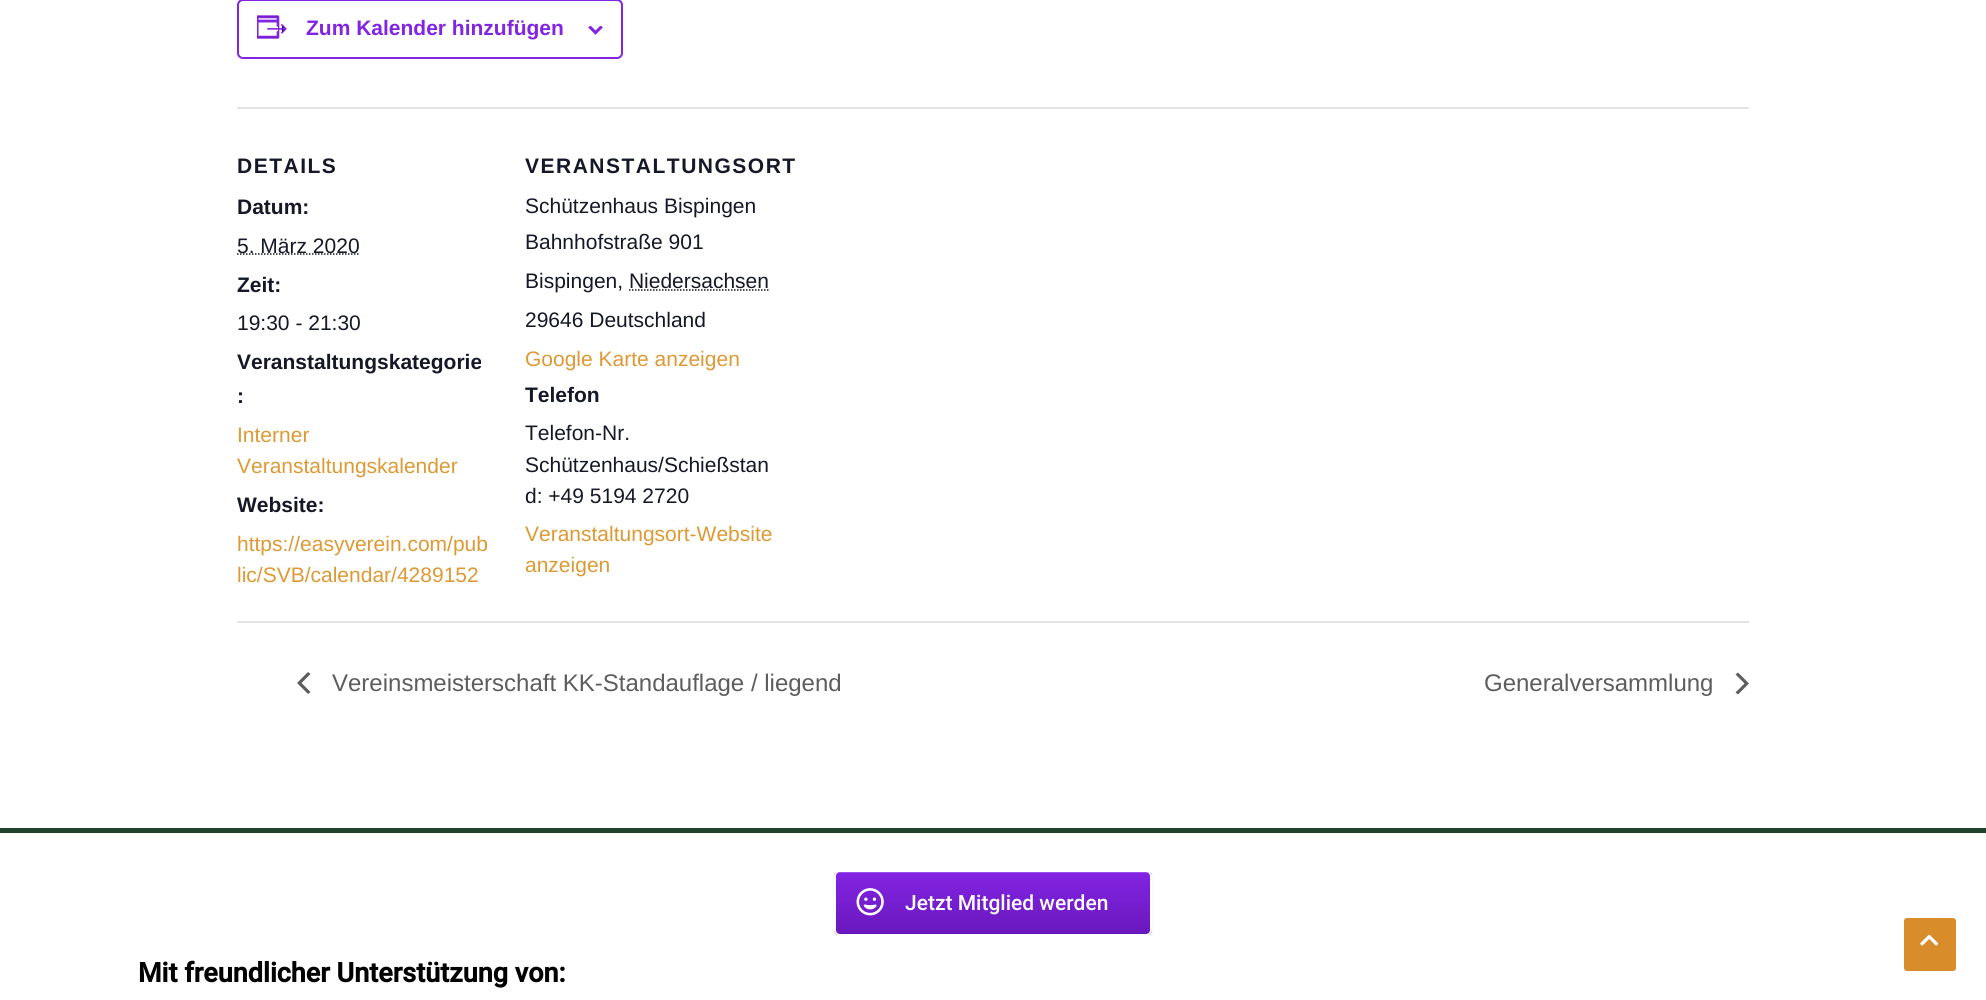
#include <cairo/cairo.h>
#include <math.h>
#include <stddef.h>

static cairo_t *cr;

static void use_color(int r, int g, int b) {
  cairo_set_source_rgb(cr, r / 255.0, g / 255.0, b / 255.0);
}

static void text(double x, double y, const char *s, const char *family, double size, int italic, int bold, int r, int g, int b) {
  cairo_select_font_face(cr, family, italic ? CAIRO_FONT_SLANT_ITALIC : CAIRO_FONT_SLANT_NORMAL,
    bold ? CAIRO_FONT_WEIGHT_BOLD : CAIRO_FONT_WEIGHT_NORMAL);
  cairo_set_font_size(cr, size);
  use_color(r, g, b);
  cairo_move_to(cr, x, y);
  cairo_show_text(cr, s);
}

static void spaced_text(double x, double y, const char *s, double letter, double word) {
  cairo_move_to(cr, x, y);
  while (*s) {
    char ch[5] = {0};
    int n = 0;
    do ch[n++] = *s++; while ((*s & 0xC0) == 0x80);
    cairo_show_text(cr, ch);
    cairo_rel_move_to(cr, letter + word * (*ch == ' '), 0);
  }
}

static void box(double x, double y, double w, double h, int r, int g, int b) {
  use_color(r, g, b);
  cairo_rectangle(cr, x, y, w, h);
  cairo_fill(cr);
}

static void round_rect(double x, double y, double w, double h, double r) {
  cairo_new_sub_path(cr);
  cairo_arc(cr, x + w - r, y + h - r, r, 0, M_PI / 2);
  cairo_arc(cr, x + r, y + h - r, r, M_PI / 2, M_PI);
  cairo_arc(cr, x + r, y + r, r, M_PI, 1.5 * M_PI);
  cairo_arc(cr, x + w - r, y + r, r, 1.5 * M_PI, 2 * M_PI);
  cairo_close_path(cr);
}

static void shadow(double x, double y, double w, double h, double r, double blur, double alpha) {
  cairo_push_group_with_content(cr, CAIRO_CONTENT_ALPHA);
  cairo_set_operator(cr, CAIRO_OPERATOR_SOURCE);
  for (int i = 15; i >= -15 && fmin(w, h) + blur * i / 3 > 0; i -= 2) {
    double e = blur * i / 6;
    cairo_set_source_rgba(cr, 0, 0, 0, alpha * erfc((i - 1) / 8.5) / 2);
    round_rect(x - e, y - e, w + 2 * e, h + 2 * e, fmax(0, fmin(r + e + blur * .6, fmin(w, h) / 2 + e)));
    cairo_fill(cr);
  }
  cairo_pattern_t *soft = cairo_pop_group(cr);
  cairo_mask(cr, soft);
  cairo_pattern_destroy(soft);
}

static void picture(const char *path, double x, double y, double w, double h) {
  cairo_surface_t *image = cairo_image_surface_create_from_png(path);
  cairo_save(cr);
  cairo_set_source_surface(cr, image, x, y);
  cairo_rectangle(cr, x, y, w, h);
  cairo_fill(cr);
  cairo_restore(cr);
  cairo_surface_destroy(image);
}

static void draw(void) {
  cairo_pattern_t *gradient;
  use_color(255, 255, 255);
  cairo_paint(cr);
  round_rect(238, 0, 384, 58, 5);
  use_color(130, 36, 227);
  cairo_stroke(cr);
  picture("img_01.png", 257, 15, 30, 24);
  picture("img_02.png", 588, 26, 15, 9);
  box(237, 107, 1512, 2, 228, 228, 228);
  cairo_new_path(cr);
  cairo_move_to(cr, 237, 254);
  cairo_line_to(cr, 359.5, 254);
  use_color(20, 24, 39);
  cairo_set_line_width(cr, 1.5);
  cairo_set_dash(cr, (double[]){1.5, 1.5}, 2, 0);
  cairo_stroke(cr);
  cairo_new_path(cr);
  cairo_move_to(cr, 629, 290);
  cairo_line_to(cr, 769, 290);
  cairo_stroke(cr);
  box(237, 621, 1512, 2, 228, 228, 228);
  use_color(93, 93, 93);
  cairo_new_path(cr);
  cairo_move_to(cr, 310.5, 692);
  cairo_line_to(cr, 308, 694);
  cairo_line_to(cr, 297, 683);
  cairo_line_to(cr, 308, 672);
  cairo_line_to(cr, 310.5, 674);
  cairo_line_to(cr, 301.5, 683);
  cairo_close_path(cr);
  cairo_fill(cr);
  cairo_new_path(cr);
  cairo_move_to(cr, 1735.5, 674.5);
  cairo_line_to(cr, 1738, 672.5);
  cairo_line_to(cr, 1749, 683.5);
  cairo_line_to(cr, 1738, 694.5);
  cairo_line_to(cr, 1735.5, 692.5);
  cairo_line_to(cr, 1744.5, 683.5);
  cairo_close_path(cr);
  cairo_fill(cr);
  box(0, 828, 1986, 5, 33, 66, 46);
  cairo_save(cr);
  cairo_rectangle(cr, 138, 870, 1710, 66);
  cairo_clip(cr);
  use_color(0, 0, 0);
  shadow(834, 872, 318, 66, 6, 1.5, 0.07);
  cairo_restore(cr);
  cairo_save(cr);
  round_rect(834, 870, 318, 66, 6);
  cairo_clip(cr);
  gradient = cairo_pattern_create_linear(836, 935, 836, 872);
  cairo_pattern_add_color_stop_rgba(gradient, 0, 0.412, 0.094, 0.737, 1);
  cairo_pattern_add_color_stop_rgba(gradient, 1, 0.51, 0.141, 0.89, 1);
  cairo_set_source(cr, gradient);
  cairo_pattern_destroy(gradient);
  cairo_rectangle(cr, 834, 872, 318, 63);
  cairo_fill(cr);
  cairo_restore(cr);
  cairo_set_source_rgba(cr, 1, 1, 1, 0.2);
  cairo_new_path(cr);
  cairo_move_to(cr, 839, 873);
  cairo_line_to(cr, 1147, 873);
  cairo_curve_to(cr, 1149, 873, 1150, 875, 1150, 877);
  cairo_line_to(cr, 1150, 932);
  cairo_line_to(cr, 1150, 934);
  cairo_curve_to(cr, 1150, 933, 1151, 932, 1151, 931);
  cairo_line_to(cr, 1151, 876);
  cairo_curve_to(cr, 1151, 874, 1149, 872, 1147, 872);
  cairo_line_to(cr, 840, 872);
  cairo_curve_to(cr, 838, 872, 836, 874, 836, 876);
  cairo_line_to(cr, 836, 877);
  cairo_curve_to(cr, 836, 875, 837, 873, 839, 873);
  cairo_close_path(cr);
  cairo_fill(cr);
  round_rect(835, 871, 316, 64, 5);
  use_color(255, 255, 255);
  cairo_set_line_width(cr, 2);
  cairo_set_dash(cr, NULL, 0, 0);
  cairo_stroke(cr);
  picture("img_03.png", 856, 888, 28, 28);
  use_color(216, 140, 42);
  round_rect(1904, 918, 52, 53, 3);
  cairo_fill(cr);
  picture("img_04.png", 1920, 934, 19, 12);
  text(306, 35, "Zum Kalender hinzufügen", "Liberation Sans", 21, 0, 1, 130, 36, 227);
  use_color(20, 24, 39);
  spaced_text(237, 173, "DETAILS", 1.5, 0);
  text(237, 214, "Datum:", "Liberation Sans", 21, 0, 1, 20, 24, 39);
  text(237, 253, "5. März 2020", "Liberation Sans", 21, 0, 0, 20, 24, 39);
  text(237, 292, "Zeit:", "Liberation Sans", 21, 0, 1, 20, 24, 39);
  text(237, 330, "19:30 - 21:30", "Liberation Sans", 21, 0, 0, 20, 24, 39);
  text(237, 369, "Veranstaltungskategorie", "Liberation Sans", 21, 0, 1, 20, 24, 39);
  text(237, 403, ":", "Liberation Sans", 21, 0, 1, 20, 24, 39);
  text(237, 442, "Interner", "Liberation Sans", 21, 0, 0, 221, 153, 51);
  text(237, 473, "Veranstaltungskalender", "Liberation Sans", 21, 0, 0, 221, 153, 51);
  text(237, 512, "Website:", "Liberation Sans", 21, 0, 1, 20, 24, 39);
  text(237, 551, "https://easyverein.com/pub", "Liberation Sans", 21, 0, 0, 221, 153, 51);
  text(237, 582, "lic/SVB/calendar/4289152", "Liberation Sans", 21, 0, 0, 221, 153, 51);
  cairo_select_font_face(cr, "Liberation Sans", CAIRO_FONT_SLANT_NORMAL, CAIRO_FONT_WEIGHT_BOLD);
  use_color(20, 24, 39);
  spaced_text(525, 173, "VERANSTALTUNGSORT", 1.5, 0);
  text(525, 213, "Schützenhaus Bispingen", "Liberation Sans", 21, 0, 0, 20, 24, 39);
  text(525, 249, "Bahnhofstraße 901", "Liberation Sans", 21, 0, 0, 20, 24, 39);
  text(525, 288, "Bispingen, Niedersachsen", "Liberation Sans", 21, 0, 0, 20, 24, 39);
  text(525, 327, "29646 Deutschland", "Liberation Sans", 21, 0, 0, 20, 24, 39);
  text(525, 366, "Google Karte anzeigen", "Liberation Sans", 21, 0, 0, 221, 153, 51);
  text(525, 402, "Telefon", "Liberation Sans", 21, 0, 1, 20, 24, 39);
  text(525, 440, "Telefon-Nr.", "Liberation Sans", 21, 0, 0, 20, 24, 39);
  text(525, 472, "Schützenhaus/Schießstan", "Liberation Sans", 21, 0, 0, 20, 24, 39);
  text(525, 503, "d: +49 5194 2720", "Liberation Sans", 21, 0, 0, 20, 24, 39);
  text(525, 541, "Veranstaltungsort-Website", "Liberation Sans", 21, 0, 0, 221, 153, 51);
  text(525, 572, "anzeigen", "Liberation Sans", 21, 0, 0, 221, 153, 51);
  text(332, 691, "Vereinsmeisterschaft KK-Standauflage / liegend", "Liberation Sans", 24, 0, 0, 93, 93, 93);
  text(1484, 691, "Generalversammlung", "Liberation Sans", 24, 0, 0, 93, 93, 93);
  text(905, 910, "Jetzt Mitglied werden", "Roboto Medium", 21, 0, 0, 255, 255, 255);
  text(138, 982, "Mit freundlicher Unterstützung von:", "Roboto", 27, 0, 1, 0, 0, 0);
}

int main(void) {
  cairo_surface_t *surface = cairo_image_surface_create(CAIRO_FORMAT_RGB24, 1986, 1000);
  cr = cairo_create(surface);
  cairo_font_options_t *options = cairo_font_options_create();
  cairo_font_options_set_hint_metrics(options, CAIRO_HINT_METRICS_OFF);
  cairo_font_options_set_hint_style(options, CAIRO_HINT_STYLE_NONE);
  cairo_set_font_options(cr, options);
  cairo_set_miter_limit(cr, 4);
  draw();
  cairo_surface_write_to_png(surface, "out.png");
  cairo_font_options_destroy(options);
  cairo_destroy(cr);
  cairo_surface_destroy(surface);
  return 0;
}
